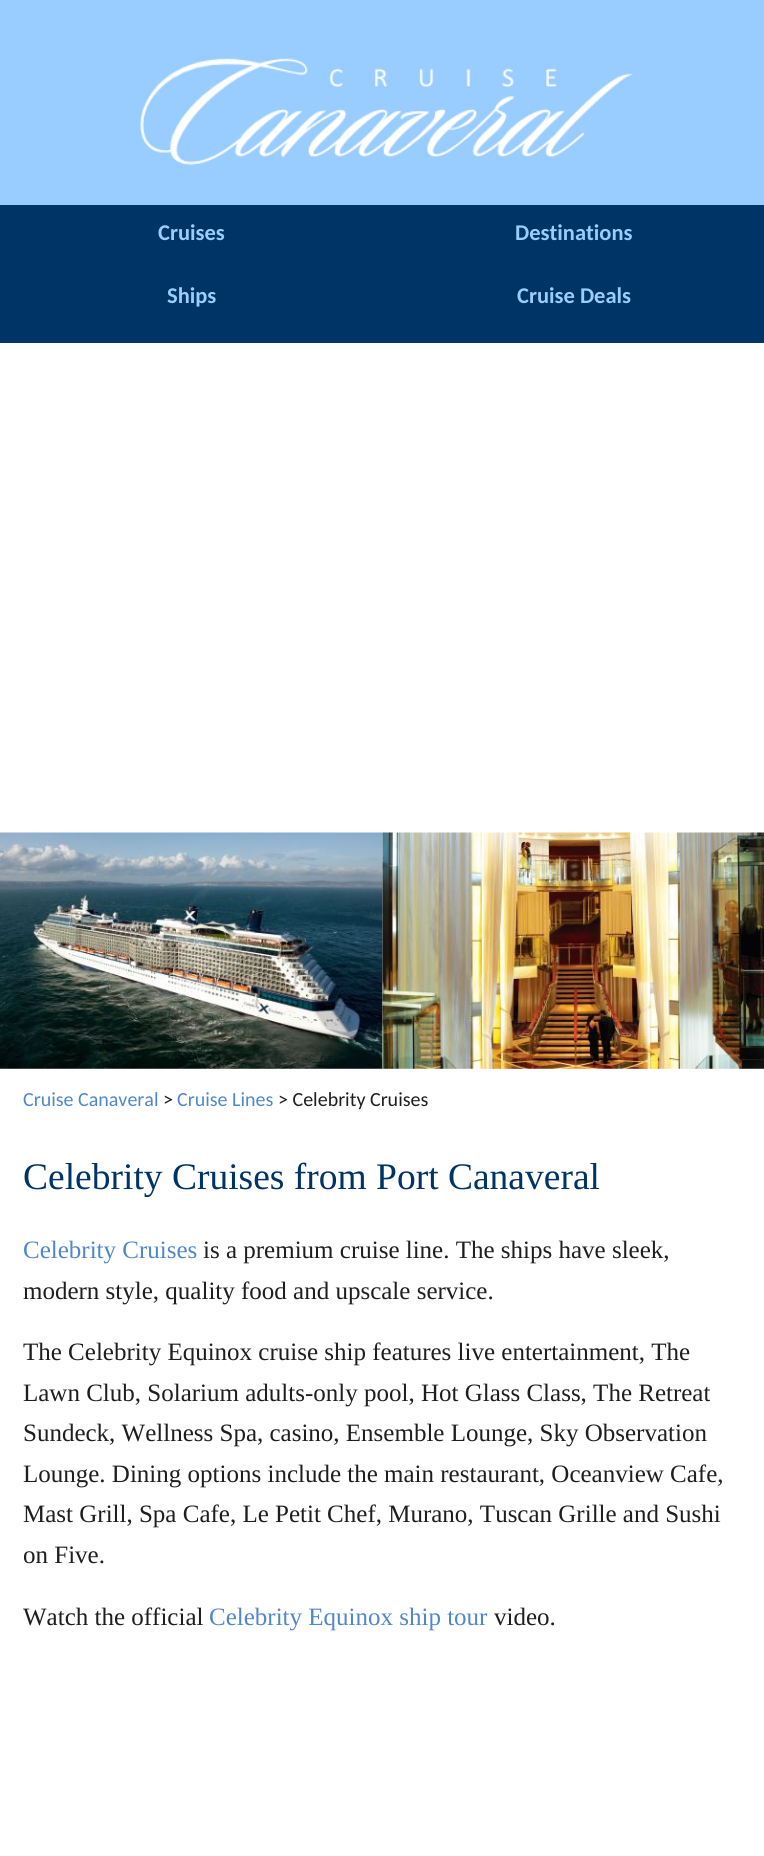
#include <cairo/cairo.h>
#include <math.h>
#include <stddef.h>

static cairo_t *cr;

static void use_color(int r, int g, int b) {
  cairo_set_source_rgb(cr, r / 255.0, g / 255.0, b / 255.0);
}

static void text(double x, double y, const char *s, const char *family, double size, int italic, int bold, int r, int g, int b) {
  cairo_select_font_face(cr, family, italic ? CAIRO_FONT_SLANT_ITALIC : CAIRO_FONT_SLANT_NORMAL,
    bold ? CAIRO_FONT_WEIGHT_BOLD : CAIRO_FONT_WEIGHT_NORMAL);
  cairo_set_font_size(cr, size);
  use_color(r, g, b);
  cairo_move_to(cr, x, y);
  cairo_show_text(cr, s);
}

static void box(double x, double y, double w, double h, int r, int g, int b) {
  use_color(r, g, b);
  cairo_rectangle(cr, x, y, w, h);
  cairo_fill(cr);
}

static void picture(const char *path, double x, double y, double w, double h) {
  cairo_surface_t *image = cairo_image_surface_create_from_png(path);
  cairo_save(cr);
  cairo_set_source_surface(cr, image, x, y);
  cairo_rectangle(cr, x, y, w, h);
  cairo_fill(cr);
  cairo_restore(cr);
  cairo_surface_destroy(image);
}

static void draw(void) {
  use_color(0, 51, 102);
  cairo_paint(cr);
  box(0, 0, 764, 205, 153, 204, 255);
  picture("img_01.png", 140, 58, 493, 108);
  box(0, 343, 764, 1513, 255, 255, 255);
  picture("img_02.png", 0, 832, 383, 237);
  picture("img_03.png", 382, 832, 382, 237);
  text(158, 240, "Cruises", "Carlito", 22.5, 0, 1, 153, 204, 255);
  text(515, 240, "Destinations", "Carlito", 22.5, 0, 1, 153, 204, 255);
  text(167, 303, "Ships", "Carlito", 22.5, 0, 1, 153, 204, 255);
  text(517, 303, "Cruise Deals", "Carlito", 22.5, 0, 1, 153, 204, 255);
  text(23, 1106, "Cruise Canaveral", "Carlito", 20, 0, 0, 80, 135, 202);
  text(163, 1106, ">", "Carlito", 20, 0, 0, 30, 30, 30);
  text(177, 1106, "Cruise Lines", "Carlito", 20, 0, 0, 80, 135, 202);
  text(278, 1106, "> Celebrity Cruises", "Carlito", 20, 0, 0, 30, 30, 30);
  text(23, 1189, "Celebrity Cruises from Port Canaveral", "Liberation Serif", 37.5, 0, 0, 0, 51, 102);
  text(23, 1258, "Celebrity Cruises", "Liberation Serif", 25, 0, 0, 80, 135, 202);
  text(203, 1258, "is a premium cruise line. The ships have sleek,", "Liberation Serif", 25, 0, 0, 30, 30, 30);
  text(23, 1299, "modern style, quality food and upscale service.", "Liberation Serif", 25, 0, 0, 30, 30, 30);
  text(23, 1360, "The Celebrity Equinox cruise ship features live entertainment, The", "Liberation Serif", 25, 0, 0, 30, 30, 30);
  text(23, 1401, "Lawn Club, Solarium adults-only pool, Hot Glass Class, The Retreat", "Liberation Serif", 25, 0, 0, 30, 30, 30);
  text(23, 1441, "Sundeck, Wellness Spa, casino, Ensemble Lounge, Sky Observation", "Liberation Serif", 25, 0, 0, 30, 30, 30);
  text(23, 1482, "Lounge. Dining options include the main restaurant, Oceanview Cafe,", "Liberation Serif", 25, 0, 0, 30, 30, 30);
  text(23, 1522, "Mast Grill, Spa Cafe, Le Petit Chef, Murano, Tuscan Grille and Sushi", "Liberation Serif", 25, 0, 0, 30, 30, 30);
  text(23, 1563, "on Five.", "Liberation Serif", 25, 0, 0, 30, 30, 30);
  text(23, 1625, "Watch the official", "Liberation Serif", 25, 0, 0, 30, 30, 30);
  text(209, 1625, "Celebrity Equinox ship tour", "Liberation Serif", 25, 0, 0, 80, 135, 202);
  text(494, 1625, "video.", "Liberation Serif", 25, 0, 0, 30, 30, 30);
}

int main(void) {
  cairo_surface_t *surface = cairo_image_surface_create(CAIRO_FORMAT_RGB24, 764, 1856);
  cr = cairo_create(surface);
  cairo_font_options_t *options = cairo_font_options_create();
  cairo_font_options_set_hint_metrics(options, CAIRO_HINT_METRICS_OFF);
  cairo_font_options_set_hint_style(options, CAIRO_HINT_STYLE_NONE);
  cairo_set_font_options(cr, options);
  cairo_set_miter_limit(cr, 4);
  draw();
  cairo_surface_write_to_png(surface, "out.png");
  cairo_font_options_destroy(options);
  cairo_destroy(cr);
  cairo_surface_destroy(surface);
  return 0;
}
